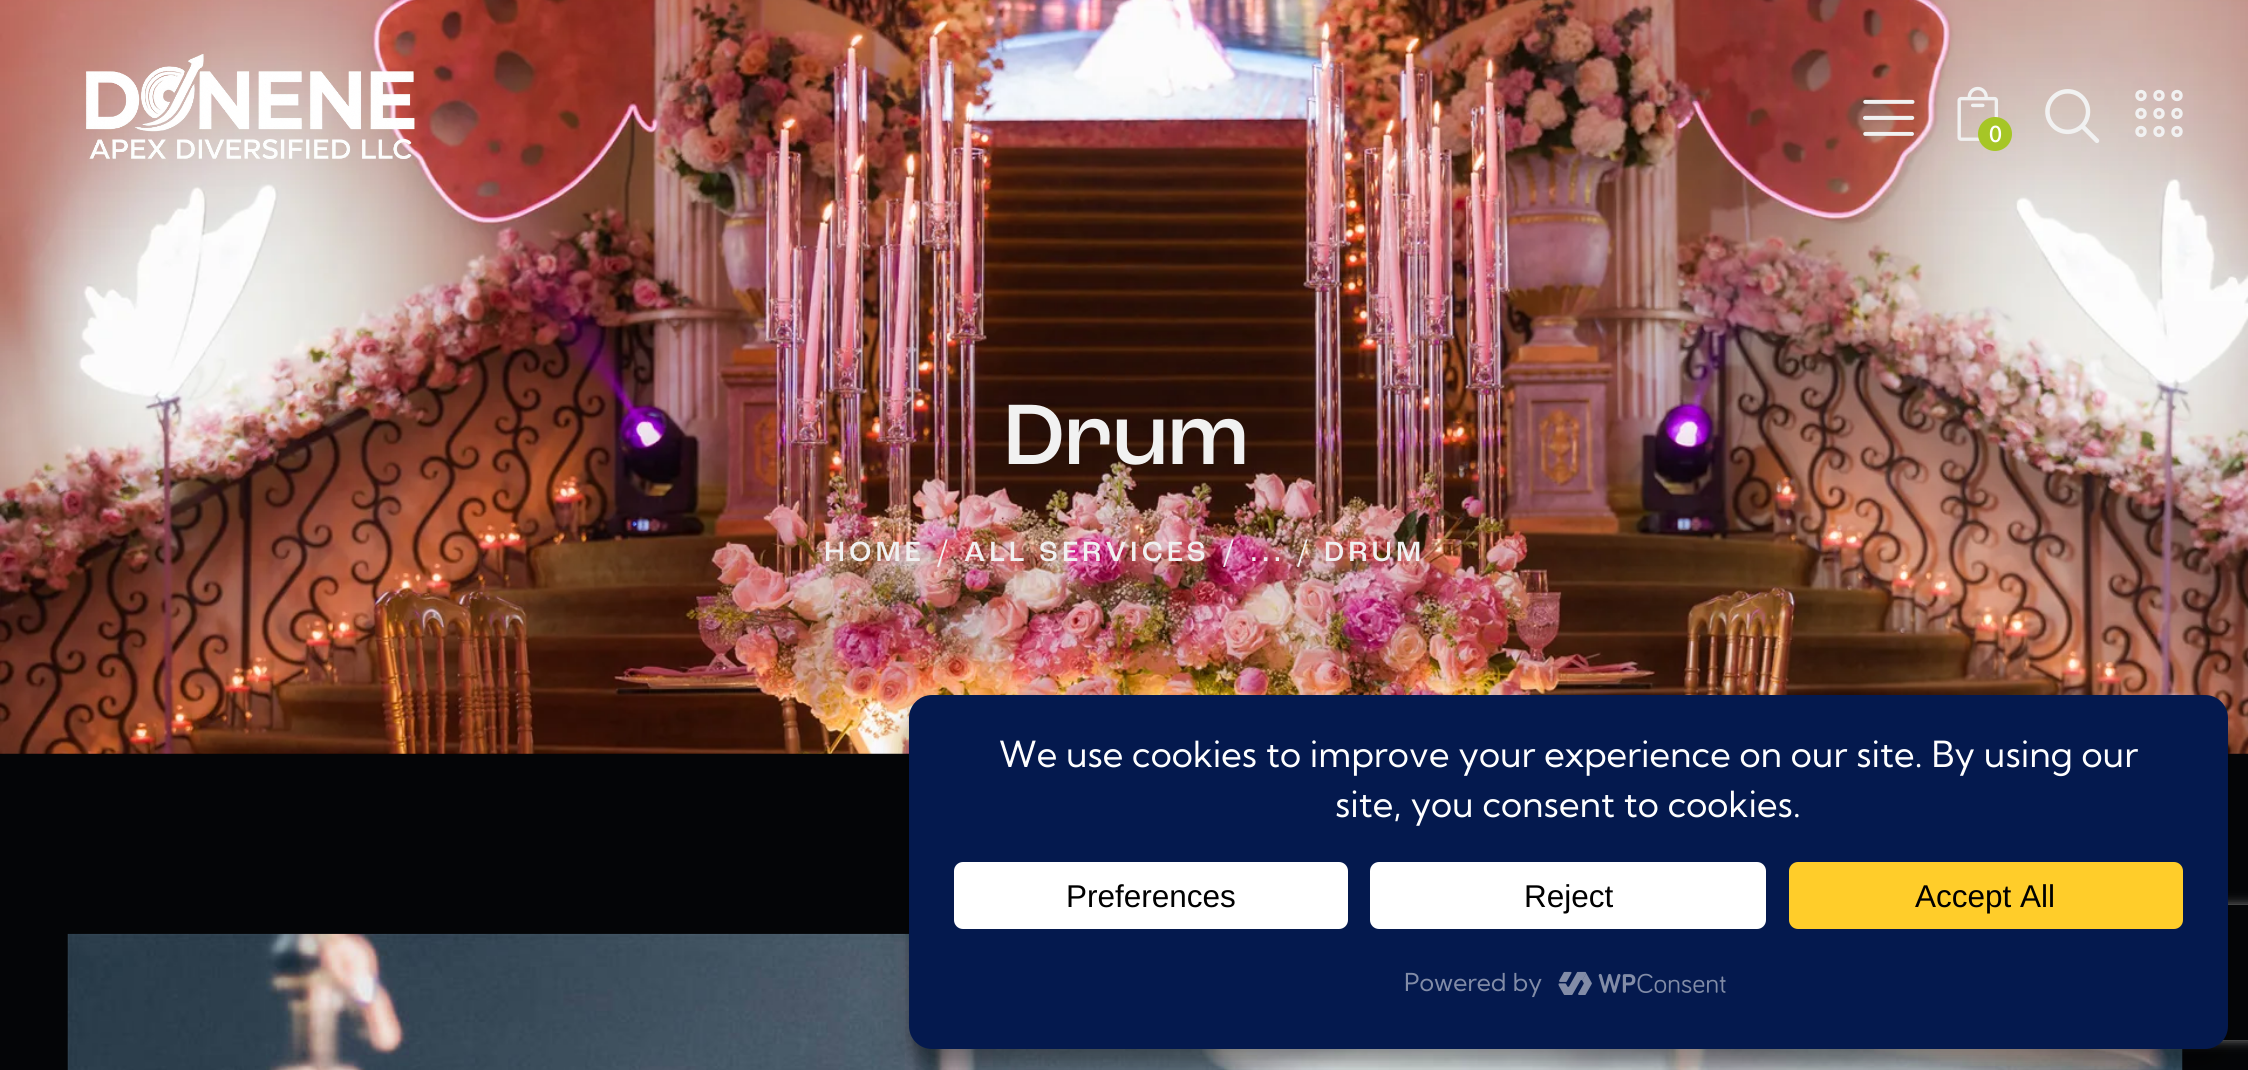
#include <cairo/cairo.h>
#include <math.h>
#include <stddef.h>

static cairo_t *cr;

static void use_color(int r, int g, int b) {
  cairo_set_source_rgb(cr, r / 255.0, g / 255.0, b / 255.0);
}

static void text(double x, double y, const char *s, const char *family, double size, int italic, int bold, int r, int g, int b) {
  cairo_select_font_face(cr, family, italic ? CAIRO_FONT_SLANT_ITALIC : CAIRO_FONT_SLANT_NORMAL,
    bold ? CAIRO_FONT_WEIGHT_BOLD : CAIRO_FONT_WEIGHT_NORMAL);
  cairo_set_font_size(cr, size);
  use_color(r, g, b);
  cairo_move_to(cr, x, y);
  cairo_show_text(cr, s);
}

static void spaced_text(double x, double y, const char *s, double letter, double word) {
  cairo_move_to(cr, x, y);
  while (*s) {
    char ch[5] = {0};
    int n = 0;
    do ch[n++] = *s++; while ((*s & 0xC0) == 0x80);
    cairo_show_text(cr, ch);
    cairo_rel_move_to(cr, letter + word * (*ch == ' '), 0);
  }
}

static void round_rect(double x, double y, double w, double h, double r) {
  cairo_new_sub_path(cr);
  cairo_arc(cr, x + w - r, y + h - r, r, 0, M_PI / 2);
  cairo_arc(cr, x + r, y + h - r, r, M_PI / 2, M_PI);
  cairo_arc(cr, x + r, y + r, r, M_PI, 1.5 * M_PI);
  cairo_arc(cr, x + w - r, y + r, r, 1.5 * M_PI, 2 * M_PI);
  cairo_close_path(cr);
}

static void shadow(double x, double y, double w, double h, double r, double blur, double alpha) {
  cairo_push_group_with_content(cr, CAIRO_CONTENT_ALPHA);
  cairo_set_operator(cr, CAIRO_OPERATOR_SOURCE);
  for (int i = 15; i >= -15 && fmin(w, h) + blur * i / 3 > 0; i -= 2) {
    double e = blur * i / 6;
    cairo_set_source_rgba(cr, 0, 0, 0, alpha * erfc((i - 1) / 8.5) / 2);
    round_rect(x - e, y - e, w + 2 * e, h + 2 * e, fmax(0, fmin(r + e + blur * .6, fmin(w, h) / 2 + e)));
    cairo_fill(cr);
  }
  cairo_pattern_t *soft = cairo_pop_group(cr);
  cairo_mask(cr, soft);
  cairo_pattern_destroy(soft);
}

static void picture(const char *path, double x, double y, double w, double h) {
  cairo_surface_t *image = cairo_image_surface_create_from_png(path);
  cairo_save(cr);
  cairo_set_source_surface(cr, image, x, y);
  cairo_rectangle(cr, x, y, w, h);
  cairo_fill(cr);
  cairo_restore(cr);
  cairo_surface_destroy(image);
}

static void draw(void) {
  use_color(4, 5, 7);
  cairo_paint(cr);
  picture("img_01.png", 0, 0, 2248, 754);
  picture("img_02.png", 86, 54, 329, 105);
  picture("img_03.png", 1863, 99, 52, 37);
  picture("img_04.png", 1957, 86, 41, 55);
  use_color(166, 198, 38);
  cairo_arc(cr, 1995, 134, 17, 0, 2 * M_PI);
  cairo_fill(cr);
  picture("img_05.png", 2045, 89, 55, 54);
  cairo_arc(cr, 2141, 95.5, 4, 0, 2 * M_PI);
  use_color(241, 241, 241);
  cairo_set_line_width(cr, 3.4);
  cairo_stroke(cr);
  cairo_arc(cr, 2159, 95.5, 4, 0, 2 * M_PI);
  cairo_stroke(cr);
  cairo_arc(cr, 2177, 95.5, 4, 0, 2 * M_PI);
  cairo_stroke(cr);
  cairo_arc(cr, 2141, 113.5, 4, 0, 2 * M_PI);
  cairo_stroke(cr);
  cairo_arc(cr, 2159, 113.5, 4, 0, 2 * M_PI);
  cairo_stroke(cr);
  cairo_arc(cr, 2177, 113.5, 4, 0, 2 * M_PI);
  cairo_stroke(cr);
  cairo_arc(cr, 2141, 131.5, 4, 0, 2 * M_PI);
  cairo_stroke(cr);
  cairo_arc(cr, 2159, 131.5, 4, 0, 2 * M_PI);
  cairo_stroke(cr);
  cairo_arc(cr, 2177, 131.5, 4, 0, 2 * M_PI);
  cairo_stroke(cr);
  picture("img_06.png", 67, 933, 2116, 137);
  use_color(0, 0, 0);
  shadow(909, 709, 1319, 353, 23, 7, 0.23);
  shadow(909, 718, 1319, 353, 23, 22.5, 0.19);
  cairo_save(cr);
  cairo_set_fill_rule(cr, CAIRO_FILL_RULE_EVEN_ODD);
  cairo_new_path(cr);
  cairo_move_to(cr, 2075, 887);
  cairo_line_to(cr, 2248, 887);
  cairo_line_to(cr, 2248, 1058);
  cairo_line_to(cr, 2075, 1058);
  cairo_close_path(cr);
  cairo_move_to(cr, 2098, 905);
  cairo_line_to(cr, 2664, 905);
  cairo_curve_to(cr, 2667, 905, 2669, 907, 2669, 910);
  cairo_line_to(cr, 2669, 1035);
  cairo_curve_to(cr, 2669, 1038, 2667, 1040, 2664, 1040);
  cairo_line_to(cr, 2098, 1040);
  cairo_curve_to(cr, 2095, 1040, 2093, 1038, 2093, 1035);
  cairo_line_to(cr, 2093, 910);
  cairo_curve_to(cr, 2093, 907, 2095, 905, 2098, 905);
  cairo_close_path(cr);
  cairo_clip(cr);
  use_color(128, 128, 128);
  shadow(2093, 905, 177, 135, 5, 5.5, 1);
  cairo_restore(cr);
  use_color(4, 25, 78);
  round_rect(909, 695, 1319, 354, 23);
  cairo_fill(cr);
  use_color(255, 255, 255);
  round_rect(954, 862, 394, 67, 9);
  cairo_fill(cr);
  round_rect(1370, 862, 396, 67, 9);
  cairo_fill(cr);
  use_color(255, 205, 42);
  round_rect(1789, 862, 394, 67, 9);
  cairo_fill(cr);
  picture("img_07.png", 1558, 971, 168, 24);
  text(1989, 142, "0", "Kumbh Sans Medium", 22, 0, 0, 255, 255, 255);
  cairo_select_font_face(cr, "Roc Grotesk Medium", CAIRO_FONT_SLANT_NORMAL, CAIRO_FONT_WEIGHT_NORMAL);
  cairo_set_font_size(cr, 90);
  use_color(241, 241, 241);
  spaced_text(1003, 464, "Drum", -1, 0);
  cairo_set_font_size(cr, 29.25);
  spaced_text(824, 561, "HOME", 4, 0);
  spaced_text(938, 561, "/", 4, 0);
  spaced_text(964, 561, "ALL SERVICES", 4, 0);
  spaced_text(1224, 561, "/", 4, 0);
  spaced_text(1250, 561, "...", 4, 0);
  spaced_text(1298, 561, "/", 4, 0);
  spaced_text(1324, 561, "DRUM", 4, 0);
  text(999, 767, "We use cookies to improve your experience on our site. By using our", "Kumbh Sans", 36, 0, 0, 255, 255, 255);
  text(1335, 817, "site, you consent to cookies.", "Kumbh Sans", 36, 0, 0, 255, 255, 255);
  text(1066, 907, "Preferences", "Liberation Sans", 31.5, 0, 0, 0, 0, 0);
  text(1524, 907, "Reject", "Liberation Sans", 31.5, 0, 0, 0, 0, 0);
  text(1915, 907, "Accept All", "Liberation Sans", 31.5, 0, 0, 0, 0, 0);
  text(1404, 991, "Powered by", "Kumbh Sans", 24.75, 0, 0, 130, 140, 167);
}

int main(void) {
  cairo_surface_t *surface = cairo_image_surface_create(CAIRO_FORMAT_RGB24, 2248, 1070);
  cr = cairo_create(surface);
  cairo_font_options_t *options = cairo_font_options_create();
  cairo_font_options_set_hint_metrics(options, CAIRO_HINT_METRICS_OFF);
  cairo_font_options_set_hint_style(options, CAIRO_HINT_STYLE_NONE);
  cairo_set_font_options(cr, options);
  cairo_set_miter_limit(cr, 4);
  draw();
  cairo_surface_write_to_png(surface, "out.png");
  cairo_font_options_destroy(options);
  cairo_destroy(cr);
  cairo_surface_destroy(surface);
  return 0;
}
